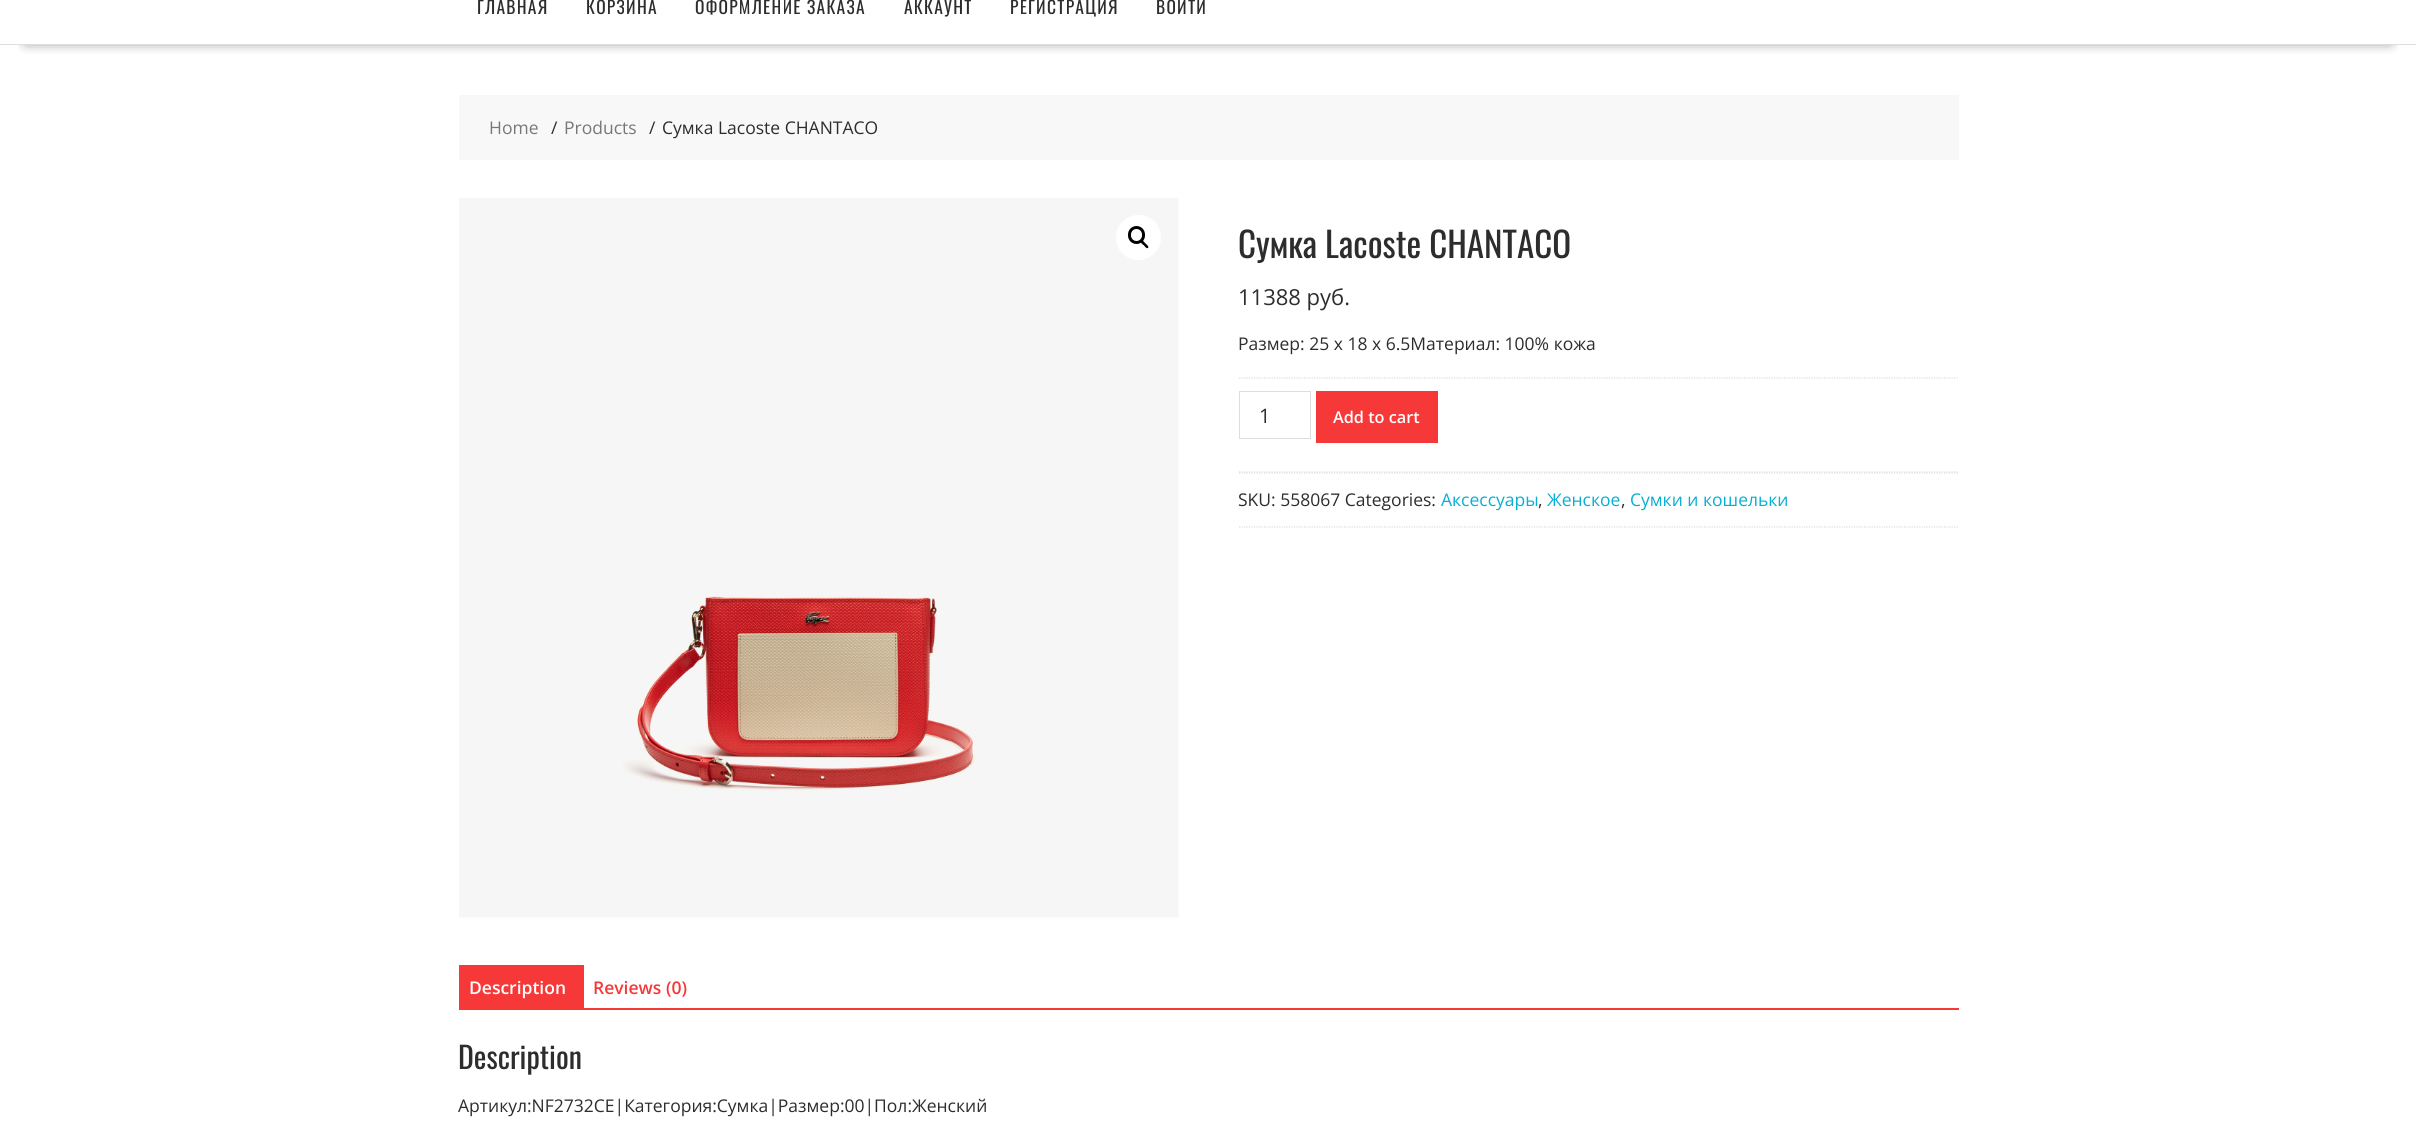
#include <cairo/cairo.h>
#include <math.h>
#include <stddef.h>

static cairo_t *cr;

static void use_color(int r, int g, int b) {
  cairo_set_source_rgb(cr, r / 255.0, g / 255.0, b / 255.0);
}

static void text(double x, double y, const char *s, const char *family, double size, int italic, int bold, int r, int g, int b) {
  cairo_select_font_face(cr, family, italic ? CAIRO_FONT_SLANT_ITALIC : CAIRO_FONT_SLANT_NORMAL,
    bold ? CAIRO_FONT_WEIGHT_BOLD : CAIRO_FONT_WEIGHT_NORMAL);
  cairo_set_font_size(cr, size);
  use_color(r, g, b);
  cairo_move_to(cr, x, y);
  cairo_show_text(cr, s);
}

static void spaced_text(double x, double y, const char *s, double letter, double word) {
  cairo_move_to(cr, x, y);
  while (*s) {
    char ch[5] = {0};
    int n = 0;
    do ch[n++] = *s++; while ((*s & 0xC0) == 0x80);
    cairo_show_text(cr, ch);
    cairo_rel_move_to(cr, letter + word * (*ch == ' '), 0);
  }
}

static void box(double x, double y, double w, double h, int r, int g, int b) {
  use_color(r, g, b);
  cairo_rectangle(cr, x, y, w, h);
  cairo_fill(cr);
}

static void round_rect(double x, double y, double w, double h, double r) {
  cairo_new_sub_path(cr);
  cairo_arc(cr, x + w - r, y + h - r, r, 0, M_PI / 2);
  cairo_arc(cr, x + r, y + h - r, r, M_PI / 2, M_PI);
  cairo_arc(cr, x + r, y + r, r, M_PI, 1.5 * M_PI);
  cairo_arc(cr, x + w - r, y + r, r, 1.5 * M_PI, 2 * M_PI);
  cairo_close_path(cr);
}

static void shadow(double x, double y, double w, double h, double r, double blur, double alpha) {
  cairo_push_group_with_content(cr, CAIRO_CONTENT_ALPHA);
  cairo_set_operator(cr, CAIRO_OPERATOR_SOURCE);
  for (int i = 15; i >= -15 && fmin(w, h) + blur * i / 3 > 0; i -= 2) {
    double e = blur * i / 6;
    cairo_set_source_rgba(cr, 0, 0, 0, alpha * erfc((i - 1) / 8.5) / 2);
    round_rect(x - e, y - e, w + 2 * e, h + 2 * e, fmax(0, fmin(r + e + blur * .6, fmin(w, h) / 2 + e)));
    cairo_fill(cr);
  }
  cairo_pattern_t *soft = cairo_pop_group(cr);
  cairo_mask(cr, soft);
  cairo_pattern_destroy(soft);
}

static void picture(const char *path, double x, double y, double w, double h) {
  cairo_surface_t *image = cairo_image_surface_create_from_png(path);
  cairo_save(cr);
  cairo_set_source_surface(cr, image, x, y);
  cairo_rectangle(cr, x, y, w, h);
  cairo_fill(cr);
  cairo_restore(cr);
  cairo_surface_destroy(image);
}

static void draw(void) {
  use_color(255, 255, 255);
  cairo_paint(cr);
  cairo_save(cr);
  cairo_rectangle(cr, 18, 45, 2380, 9);
  cairo_clip(cr);
  use_color(0, 0, 0);
  shadow(26, 14, 2364, 26, 0, 7, 0.75);
  cairo_restore(cr);
  box(0, 44, 2416, 1, 222, 222, 222);
  box(459, 95, 1500, 65, 248, 248, 248);
  picture("img_01.png", 459, 198, 720, 720);
  use_color(255, 255, 255);
  cairo_arc(cr, 1138.5, 237.5, 22.5, 0, 2 * M_PI);
  cairo_fill(cr);
  round_rect(1129.5, 227.5, 14, 15, 7);
  use_color(0, 0, 0);
  cairo_set_line_width(cr, 3);
  cairo_stroke(cr);
  cairo_new_path(cr);
  cairo_move_to(cr, 1141, 240.5);
  cairo_curve_to(cr, 1142.5, 239.5, 1144.5, 242.5, 1145.5, 243.5);
  cairo_curve_to(cr, 1146, 244, 1149.5, 246.5, 1148, 248);
  cairo_curve_to(cr, 1146.5, 249, 1144.5, 246, 1143.5, 245);
  cairo_curve_to(cr, 1142.5, 244.5, 1139.5, 242, 1141, 240.5);
  cairo_close_path(cr);
  cairo_fill(cr);
  cairo_new_path(cr);
  cairo_move_to(cr, 1239, 378);
  cairo_line_to(cr, 1959, 378);
  use_color(221, 221, 221);
  cairo_set_line_width(cr, 1.2);
  cairo_set_dash(cr, (double[]){1.25, 1.25}, 2, 0);
  cairo_stroke(cr);
  cairo_new_path(cr);
  cairo_move_to(cr, 1239, 472);
  cairo_line_to(cr, 1959, 472);
  cairo_stroke(cr);
  cairo_rectangle(cr, 1239.5, 391.5, 71, 47);
  cairo_set_line_width(cr, 1);
  cairo_set_dash(cr, NULL, 0, 0);
  cairo_stroke(cr);
  box(1316, 391, 122, 52, 247, 56, 56);
  cairo_new_path(cr);
  cairo_move_to(cr, 1239, 473);
  cairo_line_to(cr, 1959, 473);
  use_color(221, 221, 221);
  cairo_set_line_width(cr, 1.2);
  cairo_set_dash(cr, (double[]){1.25, 1.25}, 2, 0);
  cairo_stroke(cr);
  cairo_new_path(cr);
  cairo_move_to(cr, 1239, 527);
  cairo_line_to(cr, 1959, 527);
  cairo_stroke(cr);
  box(459, 965, 125, 45, 247, 56, 56);
  box(584, 1008, 1375, 2, 247, 56, 56);
  cairo_select_font_face(cr, "Oswald", CAIRO_FONT_SLANT_NORMAL, CAIRO_FONT_WEIGHT_NORMAL);
  cairo_set_font_size(cr, 17.5);
  use_color(45, 45, 45);
  spaced_text(477, 14, "ГЛАВНАЯ", 1.25, 0);
  spaced_text(586, 14, "КОРЗИНА", 1.25, 0);
  spaced_text(695, 14, "ОФОРМЛЕНИЕ ЗАКАЗА", 1.25, 0);
  spaced_text(904, 14, "АККАУНТ", 1.25, 0);
  spaced_text(1010, 14, "РЕГИСТРАЦИЯ", 1.25, 0);
  spaced_text(1156, 14, "ВОЙТИ", 1.25, 0);
  text(489, 134, "Home", "Open Sans", 17.5, 0, 0, 119, 119, 119);
  text(551, 134, "/", "Open Sans", 17.5, 0, 0, 45, 45, 45);
  text(564, 134, "Products", "Open Sans", 17.5, 0, 0, 119, 119, 119);
  text(649, 134, "/", "Open Sans", 17.5, 0, 0, 45, 45, 45);
  text(662, 134, "Сумка Lacoste CHANTACO", "Open Sans", 17.5, 0, 0, 45, 45, 45);
  text(1238, 258, "Сумка Lacoste CHANTACO", "Oswald", 35, 0, 0, 45, 45, 45);
  text(1238, 305, "11388 руб.", "Open Sans", 22, 0, 0, 45, 45, 45);
  text(1238, 350, "Размер: 25 x 18 x 6.5Материал: 100% кожа", "Open Sans", 17.5, 0, 0, 45, 45, 45);
  text(1259, 423, "1", "Open Sans", 20, 0, 0, 45, 45, 45);
  text(1333, 423, "Add to cart", "Open Sans SemiBold", 16.25, 0, 0, 255, 255, 255);
  text(1238, 506, "SKU: 558067 Categories:", "Open Sans", 17.5, 0, 0, 45, 45, 45);
  text(1441, 506, "Аксессуары", "Open Sans", 17.5, 0, 0, 7, 175, 212);
  text(1538, 506, ",", "Open Sans", 17.5, 0, 0, 45, 45, 45);
  text(1547, 506, "Женское", "Open Sans", 17.5, 0, 0, 7, 175, 212);
  text(1621, 506, ",", "Open Sans", 17.5, 0, 0, 45, 45, 45);
  text(1630, 506, "Сумки и кошельки", "Open Sans", 17.5, 0, 0, 7, 175, 212);
  text(469, 994, "Description", "Open Sans SemiBold", 17.5, 0, 0, 255, 255, 255);
  text(593, 994, "Reviews (0)", "Open Sans SemiBold", 17.5, 0, 0, 247, 56, 56);
  text(458, 1069, "Description", "Oswald", 30, 0, 0, 45, 45, 45);
  text(458, 1112, "Артикул:NF2732CE|Категория:Сумка|Размер:00|Пол:Женский", "Open Sans", 17.5, 0, 0, 45, 45, 45);
}

int main(void) {
  cairo_surface_t *surface = cairo_image_surface_create(CAIRO_FORMAT_RGB24, 2416, 1121);
  cr = cairo_create(surface);
  cairo_font_options_t *options = cairo_font_options_create();
  cairo_font_options_set_hint_metrics(options, CAIRO_HINT_METRICS_OFF);
  cairo_font_options_set_hint_style(options, CAIRO_HINT_STYLE_NONE);
  cairo_set_font_options(cr, options);
  cairo_set_miter_limit(cr, 4);
  draw();
  cairo_surface_write_to_png(surface, "out.png");
  cairo_font_options_destroy(options);
  cairo_destroy(cr);
  cairo_surface_destroy(surface);
  return 0;
}
